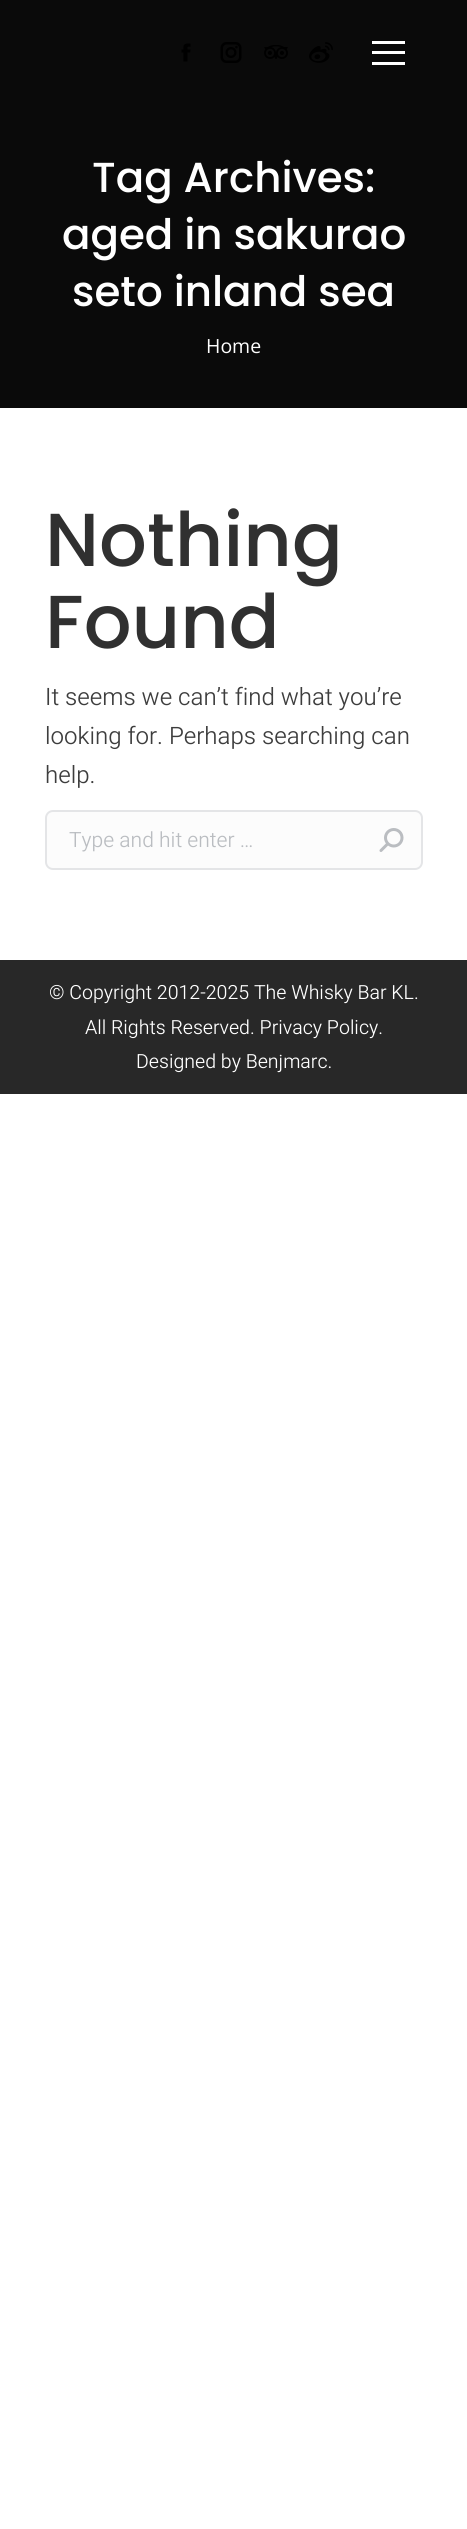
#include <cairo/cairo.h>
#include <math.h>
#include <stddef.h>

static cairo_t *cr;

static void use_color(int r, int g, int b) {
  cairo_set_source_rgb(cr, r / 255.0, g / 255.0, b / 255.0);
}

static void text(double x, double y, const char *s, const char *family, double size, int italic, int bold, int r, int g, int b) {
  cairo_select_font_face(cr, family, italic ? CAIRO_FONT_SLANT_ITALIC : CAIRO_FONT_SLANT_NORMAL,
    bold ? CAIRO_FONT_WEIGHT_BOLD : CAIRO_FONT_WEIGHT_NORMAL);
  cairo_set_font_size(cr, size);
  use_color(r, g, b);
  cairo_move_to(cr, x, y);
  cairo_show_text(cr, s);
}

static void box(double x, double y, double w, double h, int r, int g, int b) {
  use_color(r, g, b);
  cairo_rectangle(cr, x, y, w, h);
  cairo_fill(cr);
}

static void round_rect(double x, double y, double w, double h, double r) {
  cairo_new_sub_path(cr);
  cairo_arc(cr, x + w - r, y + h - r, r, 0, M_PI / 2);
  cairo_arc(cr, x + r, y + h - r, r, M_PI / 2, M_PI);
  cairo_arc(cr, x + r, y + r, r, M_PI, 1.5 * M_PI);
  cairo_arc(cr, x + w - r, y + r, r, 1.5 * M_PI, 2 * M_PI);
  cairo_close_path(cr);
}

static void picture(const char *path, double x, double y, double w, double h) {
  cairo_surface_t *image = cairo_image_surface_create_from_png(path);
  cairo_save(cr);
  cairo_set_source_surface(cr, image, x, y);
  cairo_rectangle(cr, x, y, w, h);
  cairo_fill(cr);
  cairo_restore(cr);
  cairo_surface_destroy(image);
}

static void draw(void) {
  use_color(255, 255, 255);
  cairo_paint(cr);
  box(0, 0, 467, 408, 10, 10, 10);
  picture("img_01.png", 181, 43, 10, 19);
  picture("img_02.png", 220, 42, 22, 21);
  picture("img_03.png", 264, 45, 24, 14);
  picture("img_04.png", 309, 42, 24, 21);
  box(372, 41, 33, 3, 255, 255, 255);
  box(372, 51, 33, 3, 255, 255, 255);
  box(372, 62, 33, 3, 255, 255, 255);
  use_color(252, 252, 252);
  round_rect(46, 811, 376, 58, 7);
  cairo_fill_preserve(cr);
  use_color(228, 229, 231);
  cairo_stroke(cr);
  picture("img_05.png", 379, 828, 25, 24);
  box(0, 960, 467, 134, 40, 40, 40);
  text(92, 192, "Tag Archives:", "Poppins Medium", 42, 0, 0, 255, 255, 255);
  text(62, 249, "aged in sakurao", "Poppins Medium", 42, 0, 0, 255, 255, 255);
  text(72, 306, "seto inland sea", "Poppins Medium", 42, 0, 0, 255, 255, 255);
  text(206, 353, "Home", "Open Sans", 19.5, 0, 0, 255, 255, 255);
  text(45, 566, "Nothing", "Poppins Medium", 75, 0, 0, 48, 48, 48);
  text(45, 648, "Found", "Poppins Medium", 75, 0, 0, 48, 48, 48);
  text(45, 705, "It seems we can’t find what you’re", "Heebo Light", 24, 0, 0, 61, 61, 61);
  text(45, 744, "looking for. Perhaps searching can", "Heebo Light", 24, 0, 0, 61, 61, 61);
  text(45, 783, "help.", "Heebo Light", 24, 0, 0, 61, 61, 61);
  text(69, 847, "Type and hit enter …", "Heebo Light", 21, 0, 0, 186, 189, 193);
  text(49, 999, "© Copyright 2012-2025 The Whisky Bar KL.", "Heebo Light", 19.5, 0, 0, 255, 255, 255);
  text(85, 1034, "All Rights Reserved. Privacy Policy.", "Heebo Light", 19.5, 0, 0, 255, 255, 255);
  text(136, 1068, "Designed by Benjmarc.", "Heebo Light", 19.5, 0, 0, 255, 255, 255);
}

int main(void) {
  cairo_surface_t *surface = cairo_image_surface_create(CAIRO_FORMAT_RGB24, 467, 2529);
  cr = cairo_create(surface);
  cairo_font_options_t *options = cairo_font_options_create();
  cairo_font_options_set_hint_metrics(options, CAIRO_HINT_METRICS_OFF);
  cairo_font_options_set_hint_style(options, CAIRO_HINT_STYLE_NONE);
  cairo_set_font_options(cr, options);
  cairo_set_miter_limit(cr, 4);
  draw();
  cairo_surface_write_to_png(surface, "out.png");
  cairo_font_options_destroy(options);
  cairo_destroy(cr);
  cairo_surface_destroy(surface);
  return 0;
}
